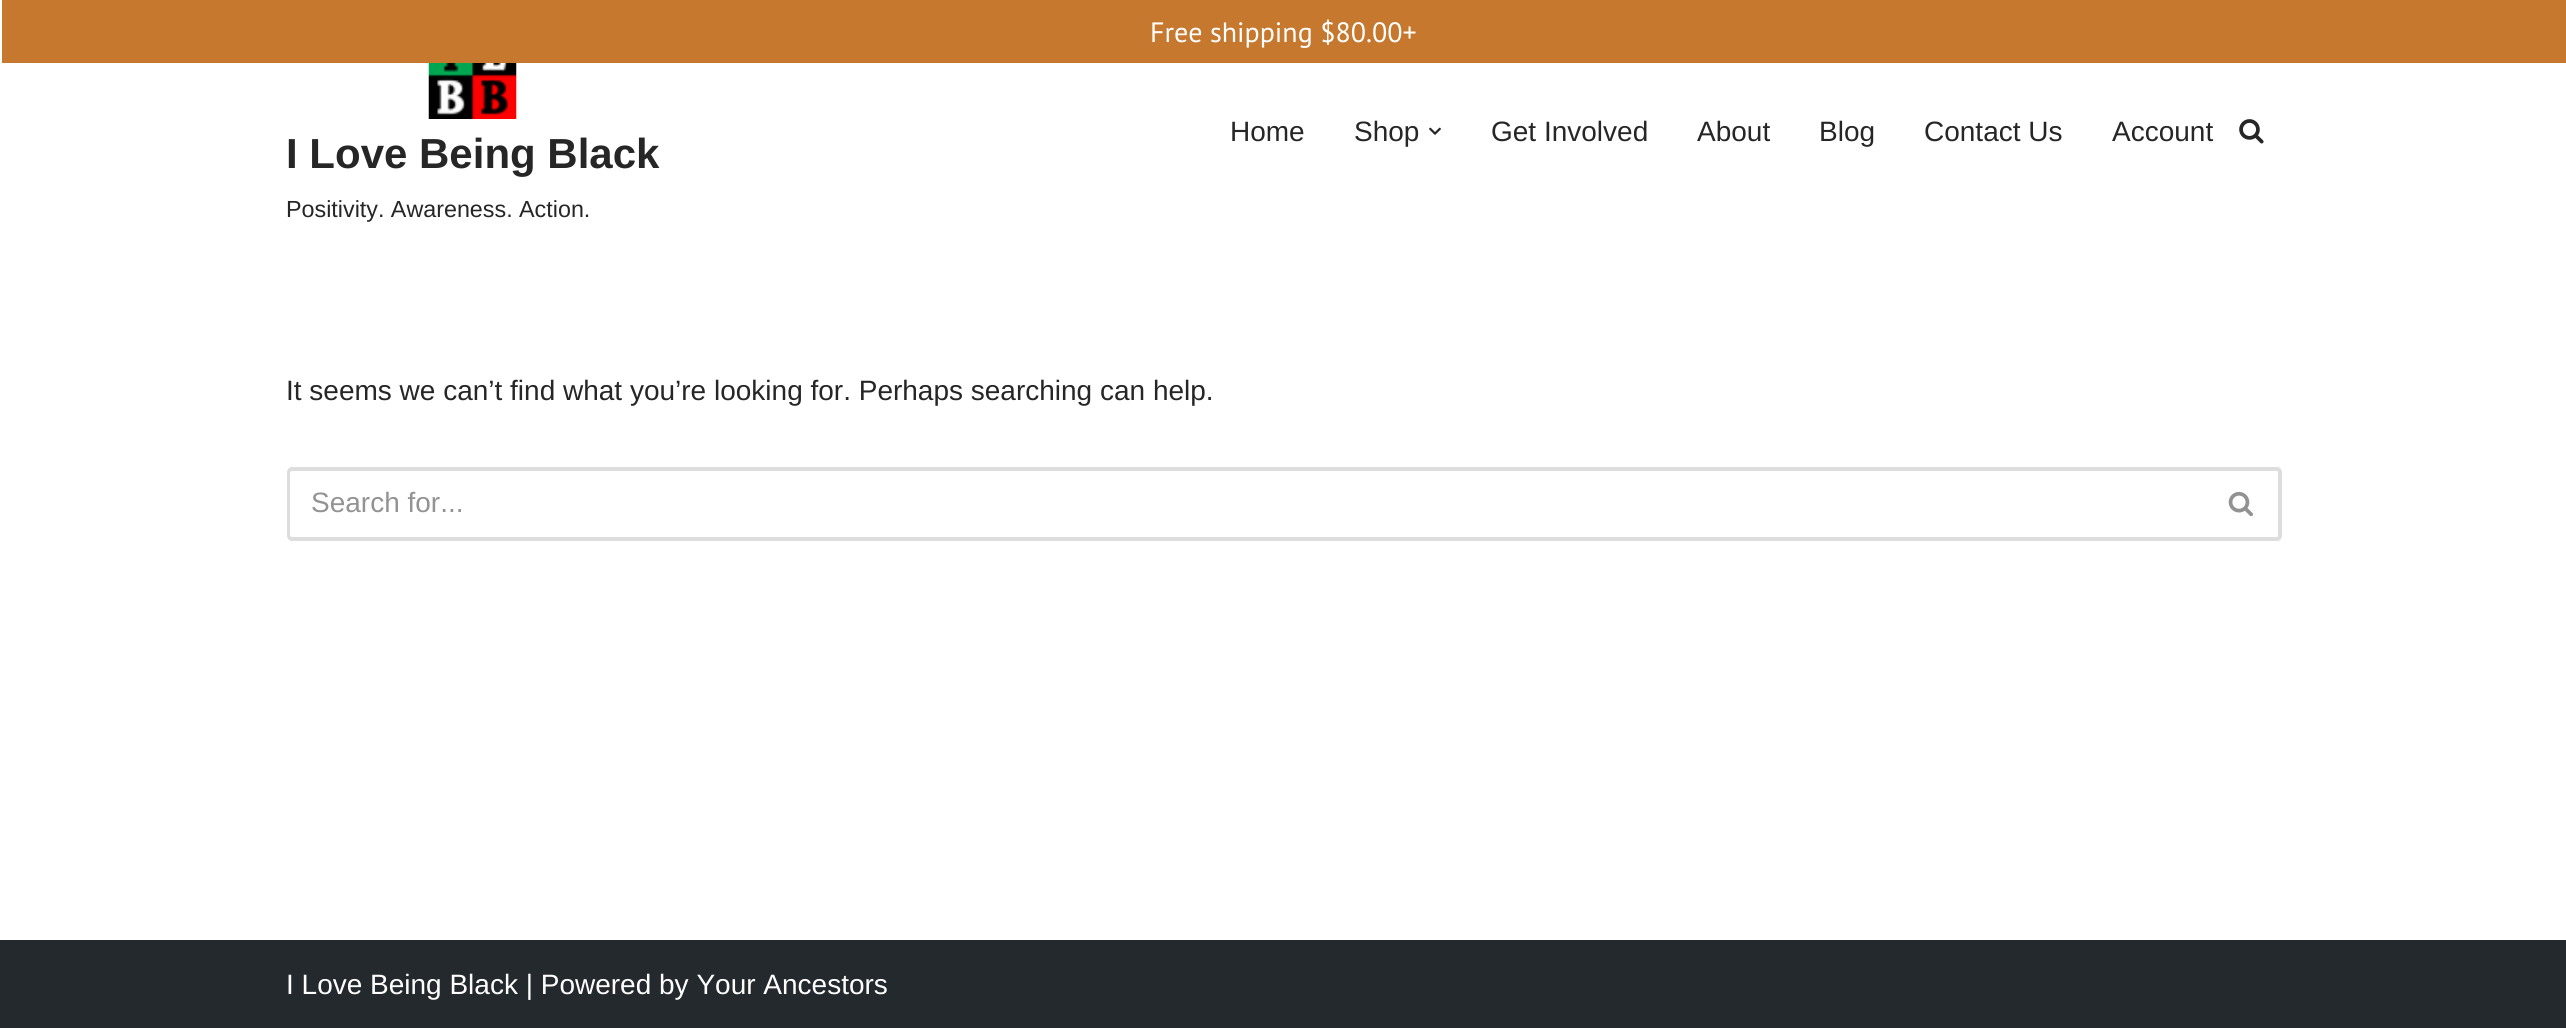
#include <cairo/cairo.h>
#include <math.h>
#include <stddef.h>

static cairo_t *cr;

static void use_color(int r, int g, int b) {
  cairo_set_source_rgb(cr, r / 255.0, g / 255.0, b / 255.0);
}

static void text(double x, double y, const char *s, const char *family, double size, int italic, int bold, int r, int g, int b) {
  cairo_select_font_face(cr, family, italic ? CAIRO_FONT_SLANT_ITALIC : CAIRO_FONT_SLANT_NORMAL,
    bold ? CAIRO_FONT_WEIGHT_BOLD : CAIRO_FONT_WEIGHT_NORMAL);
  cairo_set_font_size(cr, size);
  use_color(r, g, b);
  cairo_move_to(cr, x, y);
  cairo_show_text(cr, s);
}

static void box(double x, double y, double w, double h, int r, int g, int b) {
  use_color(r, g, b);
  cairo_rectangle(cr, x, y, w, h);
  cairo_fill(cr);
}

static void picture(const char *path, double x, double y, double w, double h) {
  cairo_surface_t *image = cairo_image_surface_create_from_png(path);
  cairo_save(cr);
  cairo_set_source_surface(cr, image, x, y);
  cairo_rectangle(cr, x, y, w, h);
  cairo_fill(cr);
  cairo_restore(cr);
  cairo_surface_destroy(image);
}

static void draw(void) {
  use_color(255, 255, 255);
  cairo_paint(cr);
  box(2, 0, 2564, 63, 198, 120, 46);
  picture("img_01.png", 1429, 127, 12, 8);
  picture("img_02.png", 2239, 119, 25, 25);
  picture("img_03.png", 428, 63, 89, 56);
  use_color(221, 221, 221);
  cairo_set_fill_rule(cr, CAIRO_FILL_RULE_EVEN_ODD);
  cairo_new_path(cr);
  cairo_move_to(cr, 292, 467);
  cairo_line_to(cr, 2203, 467);
  cairo_line_to(cr, 2203, 541);
  cairo_line_to(cr, 292, 541);
  cairo_curve_to(cr, 289, 541, 287, 538, 287, 536);
  cairo_line_to(cr, 287, 472);
  cairo_curve_to(cr, 287, 470, 289, 467, 292, 467);
  cairo_close_path(cr);
  cairo_move_to(cr, 292, 471);
  cairo_line_to(cr, 2203, 471);
  cairo_line_to(cr, 2203, 537);
  cairo_line_to(cr, 292, 537);
  cairo_curve_to(cr, 291, 537, 290, 536, 290, 536);
  cairo_line_to(cr, 290, 472);
  cairo_curve_to(cr, 290, 472, 291, 471, 292, 471);
  cairo_close_path(cr);
  cairo_fill(cr);
  cairo_new_path(cr);
  cairo_move_to(cr, 2203, 467);
  cairo_line_to(cr, 2277, 467);
  cairo_curve_to(cr, 2280, 467, 2282, 470, 2282, 472);
  cairo_line_to(cr, 2282, 536);
  cairo_curve_to(cr, 2282, 538, 2280, 541, 2277, 541);
  cairo_line_to(cr, 2203, 541);
  cairo_close_path(cr);
  cairo_move_to(cr, 2203, 471);
  cairo_line_to(cr, 2277, 471);
  cairo_curve_to(cr, 2278, 471, 2278, 472, 2278, 472);
  cairo_line_to(cr, 2278, 536);
  cairo_curve_to(cr, 2278, 536, 2278, 537, 2277, 537);
  cairo_line_to(cr, 2203, 537);
  cairo_close_path(cr);
  cairo_fill(cr);
  picture("img_04.png", 2228, 491, 25, 25);
  box(0, 940, 2566, 88, 36, 41, 46);
  text(1150, 42, "Free shipping $80.00+", "PT Sans", 28, 0, 0, 255, 255, 255);
  text(1230, 141, "Home", "Liberation Sans", 28, 0, 0, 39, 38, 38);
  text(1354, 141, "Shop", "Liberation Sans", 28, 0, 0, 39, 38, 38);
  text(1491, 141, "Get Involved", "Liberation Sans", 28, 0, 0, 39, 38, 38);
  text(1697, 141, "About", "Liberation Sans", 28, 0, 0, 39, 38, 38);
  text(1819, 141, "Blog", "Liberation Sans", 28, 0, 0, 39, 38, 38);
  text(1924, 141, "Contact Us", "Liberation Sans", 28, 0, 0, 39, 38, 38);
  text(2112, 141, "Account", "Liberation Sans", 28, 0, 0, 39, 38, 38);
  text(286, 168, "I Love Being Black", "Liberation Sans", 42, 0, 1, 39, 38, 38);
  text(286, 217, "Positivity. Awareness. Action.", "Liberation Sans", 23.3, 0, 0, 39, 38, 38);
  text(286, 400, "It seems we can’t find what you’re looking for. Perhaps searching can help.", "Liberation Sans", 28, 0, 0, 39, 38, 38);
  text(311, 512, "Search for...", "Liberation Sans", 28, 0, 0, 147, 147, 147);
  text(286, 994, "I Love Being Black | Powered by Your Ancestors", "Liberation Sans", 28, 0, 0, 255, 255, 255);
}

int main(void) {
  cairo_surface_t *surface = cairo_image_surface_create(CAIRO_FORMAT_RGB24, 2566, 1028);
  cr = cairo_create(surface);
  cairo_font_options_t *options = cairo_font_options_create();
  cairo_font_options_set_hint_metrics(options, CAIRO_HINT_METRICS_OFF);
  cairo_font_options_set_hint_style(options, CAIRO_HINT_STYLE_NONE);
  cairo_set_font_options(cr, options);
  cairo_set_miter_limit(cr, 4);
  draw();
  cairo_surface_write_to_png(surface, "out.png");
  cairo_font_options_destroy(options);
  cairo_destroy(cr);
  cairo_surface_destroy(surface);
  return 0;
}
